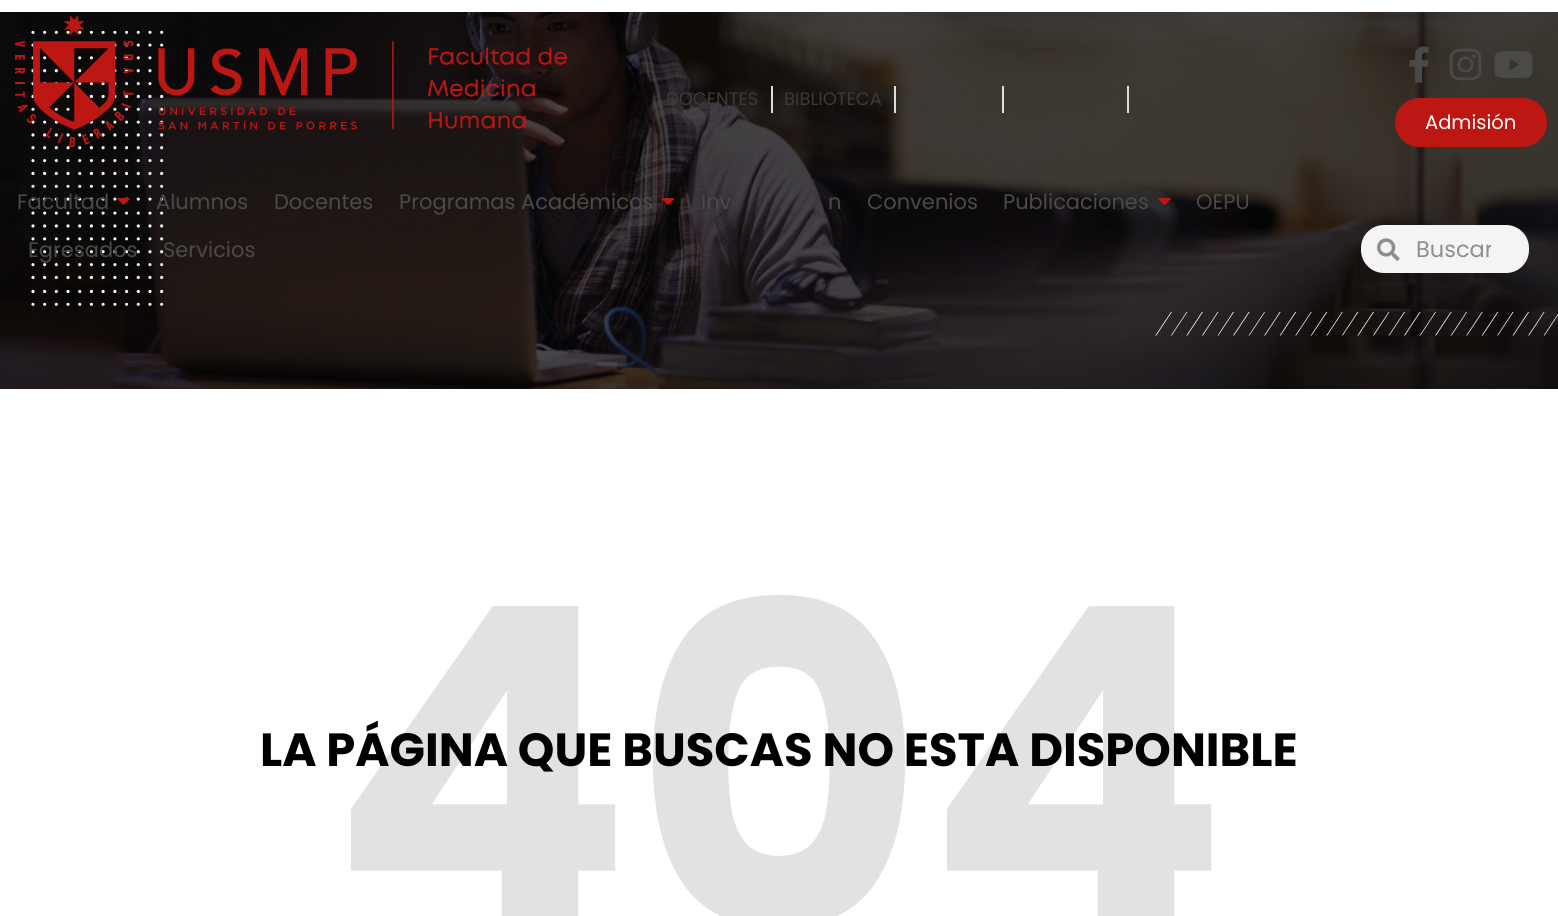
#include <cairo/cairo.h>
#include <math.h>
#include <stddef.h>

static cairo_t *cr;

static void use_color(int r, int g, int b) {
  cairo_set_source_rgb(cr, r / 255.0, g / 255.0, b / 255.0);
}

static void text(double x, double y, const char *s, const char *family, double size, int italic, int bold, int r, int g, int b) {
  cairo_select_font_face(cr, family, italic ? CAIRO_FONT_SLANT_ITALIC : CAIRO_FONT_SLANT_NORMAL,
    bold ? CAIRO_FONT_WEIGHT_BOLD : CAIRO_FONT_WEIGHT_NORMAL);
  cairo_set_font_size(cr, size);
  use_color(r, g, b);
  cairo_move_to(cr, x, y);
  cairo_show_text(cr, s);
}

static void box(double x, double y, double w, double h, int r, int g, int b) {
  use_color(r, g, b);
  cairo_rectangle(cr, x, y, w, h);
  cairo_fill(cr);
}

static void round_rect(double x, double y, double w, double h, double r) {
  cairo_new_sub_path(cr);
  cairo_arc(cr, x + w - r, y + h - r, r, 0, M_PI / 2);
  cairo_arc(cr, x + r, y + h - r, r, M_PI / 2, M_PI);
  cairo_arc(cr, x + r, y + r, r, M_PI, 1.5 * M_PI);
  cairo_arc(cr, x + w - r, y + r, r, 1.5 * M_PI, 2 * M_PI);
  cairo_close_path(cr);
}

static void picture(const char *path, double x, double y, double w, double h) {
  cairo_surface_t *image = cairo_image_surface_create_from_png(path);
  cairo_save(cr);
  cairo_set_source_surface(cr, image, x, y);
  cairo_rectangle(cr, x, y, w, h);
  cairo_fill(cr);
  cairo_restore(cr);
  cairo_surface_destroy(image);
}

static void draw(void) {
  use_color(255, 255, 255);
  cairo_paint(cr);
  picture("img_09.png", 0, 12, 1558, 377);
  picture("img_10.png", 31, 30, 133, 276);
  picture("img_01.png", 15, 15, 552, 132);
  box(771, 86, 2, 27, 221, 221, 221);
  box(894, 86, 2, 27, 221, 221, 221);
  box(1002, 86, 2, 27, 221, 221, 221);
  box(1127, 86, 2, 27, 221, 221, 221);
  picture("img_02.png", 1409, 46, 20, 37);
  picture("img_03.png", 1449, 48, 33, 33);
  picture("img_04.png", 1494, 51, 39, 27);
  use_color(189, 23, 20);
  round_rect(1395, 98, 152, 49, 24.5);
  cairo_fill(cr);
  picture("img_05.png", 117, 198, 13, 7);
  picture("img_06.png", 662, 198, 13, 7);
  picture("img_07.png", 1158, 198, 13, 7);
  use_color(244, 244, 244);
  round_rect(1361, 225, 168, 48, 23);
  cairo_fill(cr);
  picture("img_08.png", 1377, 238, 23, 23);
  picture("img_11.png", 1155, 312, 403, 24);
  text(666, 105, "DOCENTES", "Poppins", 18, 0, 0, 60, 57, 51);
  text(784, 105, "BIBLIOTECA", "Poppins", 18, 0, 0, 60, 57, 51);
  text(1425, 129, "Admisión", "Poppins", 19.5, 0, 0, 255, 255, 255);
  text(17, 209, "Facultad", "Poppins", 21, 0, 0, 74, 74, 73);
  text(156, 209, "Alumnos", "Poppins", 21, 0, 0, 74, 74, 73);
  text(274, 209, "Docentes", "Poppins", 21, 0, 0, 74, 74, 73);
  text(399, 209, "Programas Académicos", "Poppins", 21, 0, 0, 74, 74, 73);
  text(701, 209, "Inv", "Poppins", 21, 0, 0, 74, 74, 73);
  text(828, 209, "n", "Poppins", 21, 0, 0, 74, 74, 73);
  text(867, 209, "Convenios", "Poppins", 21, 0, 0, 74, 74, 73);
  text(1003, 209, "Publicaciones", "Poppins", 21, 0, 0, 74, 74, 73);
  text(1196, 209, "OEPU", "Poppins", 21, 0, 0, 74, 74, 73);
  text(28, 257, "Egresados", "Poppins", 21, 0, 0, 74, 74, 73);
  text(163, 257, "Servicios", "Poppins", 21, 0, 0, 74, 74, 73);
  cairo_save(cr);
  cairo_rectangle(cr, 1416, 233, 75, 34);
  cairo_clip(cr);
  text(1416, 257, "Buscar", "Poppins", 22.5, 0, 0, 142, 142, 141);
  cairo_restore(cr);
  text(329, 929, "404", "Poppins", 448.5, 0, 1, 226, 226, 226);
  text(260, 766, "LA PÁGINA QUE BUSCAS NO ESTA DISPONIBLE", "Poppins", 46.5, 0, 1, 0, 0, 0);
}

int main(void) {
  cairo_surface_t *surface = cairo_image_surface_create(CAIRO_FORMAT_RGB24, 1558, 916);
  cr = cairo_create(surface);
  cairo_font_options_t *options = cairo_font_options_create();
  cairo_font_options_set_hint_metrics(options, CAIRO_HINT_METRICS_OFF);
  cairo_font_options_set_hint_style(options, CAIRO_HINT_STYLE_NONE);
  cairo_set_font_options(cr, options);
  cairo_set_miter_limit(cr, 4);
  draw();
  cairo_surface_write_to_png(surface, "out.png");
  cairo_font_options_destroy(options);
  cairo_destroy(cr);
  cairo_surface_destroy(surface);
  return 0;
}
